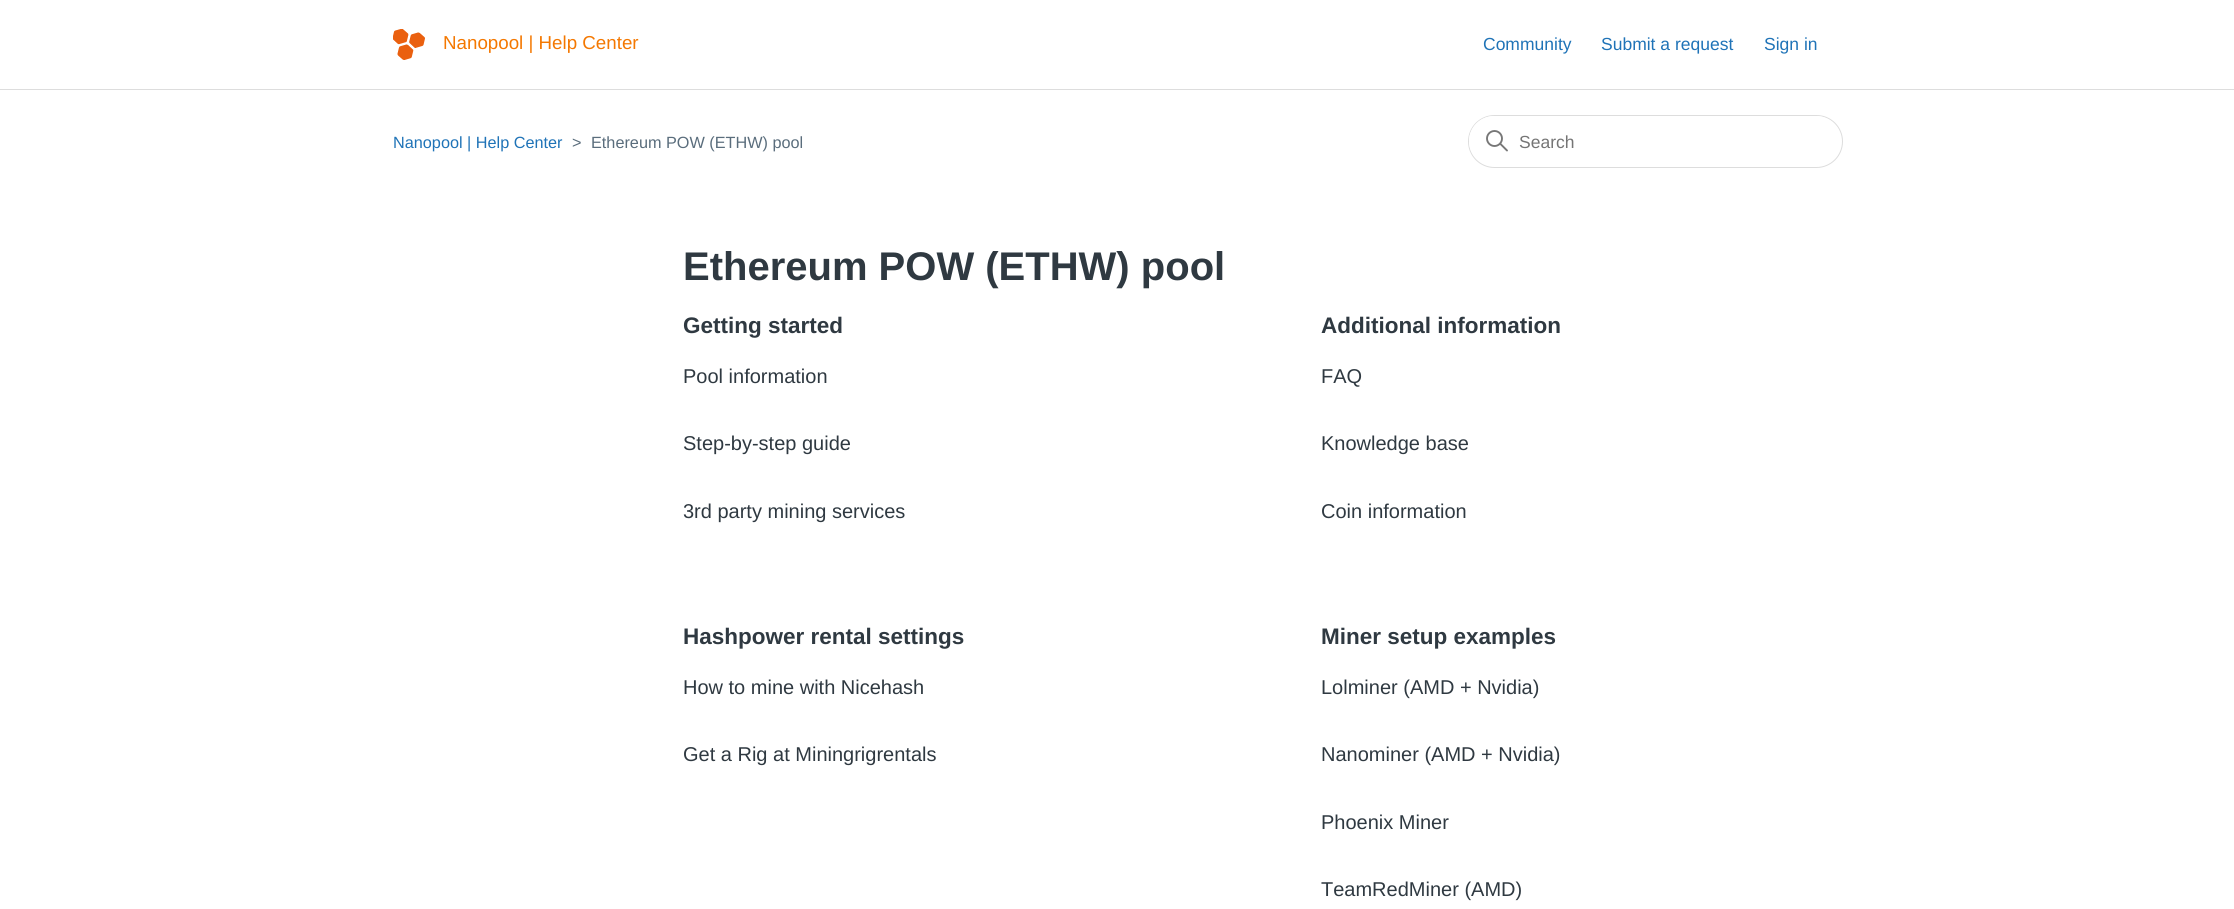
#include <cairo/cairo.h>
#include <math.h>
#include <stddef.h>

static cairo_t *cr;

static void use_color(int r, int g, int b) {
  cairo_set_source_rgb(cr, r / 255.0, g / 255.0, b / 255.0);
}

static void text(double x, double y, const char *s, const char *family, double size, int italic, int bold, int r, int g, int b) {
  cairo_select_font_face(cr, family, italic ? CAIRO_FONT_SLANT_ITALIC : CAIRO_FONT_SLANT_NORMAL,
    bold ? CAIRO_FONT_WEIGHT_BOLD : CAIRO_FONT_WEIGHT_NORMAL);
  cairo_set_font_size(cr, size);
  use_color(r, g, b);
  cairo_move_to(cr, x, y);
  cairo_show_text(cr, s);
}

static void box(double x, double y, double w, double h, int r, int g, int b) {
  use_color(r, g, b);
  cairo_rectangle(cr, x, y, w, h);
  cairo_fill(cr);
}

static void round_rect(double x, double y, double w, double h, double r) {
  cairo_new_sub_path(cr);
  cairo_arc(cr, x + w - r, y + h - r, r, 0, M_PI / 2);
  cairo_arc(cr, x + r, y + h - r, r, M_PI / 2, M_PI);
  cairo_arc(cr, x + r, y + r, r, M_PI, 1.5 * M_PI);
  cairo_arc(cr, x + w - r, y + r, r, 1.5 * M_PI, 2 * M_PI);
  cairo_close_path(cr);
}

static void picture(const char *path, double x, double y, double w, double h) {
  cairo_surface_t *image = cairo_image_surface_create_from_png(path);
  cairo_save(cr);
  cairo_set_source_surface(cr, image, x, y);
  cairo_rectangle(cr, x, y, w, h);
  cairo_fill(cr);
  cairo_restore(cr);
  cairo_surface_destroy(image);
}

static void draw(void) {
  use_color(255, 255, 255);
  cairo_paint(cr);
  picture("img_01.png", 393, 29, 32, 31);
  box(0, 89, 2234, 1, 221, 221, 221);
  round_rect(1468.5, 115.5, 374, 52, 26);
  cairo_set_line_width(cr, 1);
  cairo_stroke(cr);
  use_color(255, 255, 255);
  round_rect(1469, 116, 372, 50, 25);
  cairo_fill(cr);
  cairo_arc(cr, 1494.5, 138.5, 7.5, 0, 2 * M_PI);
  use_color(119, 119, 119);
  cairo_set_line_width(cr, 1.9);
  cairo_stroke(cr);
  cairo_new_path(cr);
  cairo_move_to(cr, 1507, 150.5);
  cairo_line_to(cr, 1500.5, 144);
  cairo_set_line_cap(cr, CAIRO_LINE_CAP_ROUND);
  cairo_stroke(cr);
  text(443, 49, "Nanopool | Help Center", "Liberation Sans", 18.75, 0, 0, 244, 120, 1);
  text(1483, 50, "Community", "Liberation Sans", 17.5, 0, 0, 31, 115, 183);
  text(1601, 50, "Submit a request", "Liberation Sans", 17.5, 0, 0, 31, 115, 183);
  text(1764, 50, "Sign in", "Liberation Sans", 17.5, 0, 0, 31, 115, 183);
  text(393, 148, "Nanopool | Help Center", "Liberation Sans", 16.25, 0, 0, 31, 115, 183);
  text(572, 148, ">", "Liberation Sans", 16.25, 0, 0, 90, 109, 124);
  text(591, 148, "Ethereum POW (ETHW) pool", "Liberation Sans", 16.25, 0, 0, 90, 109, 124);
  text(1519, 148, "Search", "Liberation Sans", 17.5, 0, 0, 117, 117, 117);
  text(683, 280, "Ethereum POW (ETHW) pool", "Liberation Sans", 40, 0, 1, 47, 57, 65);
  text(683, 333, "Getting started", "Liberation Sans", 22.5, 0, 1, 47, 57, 65);
  text(683, 383, "Pool information", "Liberation Sans", 20, 0, 0, 47, 57, 65);
  text(683, 450, "Step-by-step guide", "Liberation Sans", 20, 0, 0, 47, 57, 65);
  text(683, 518, "3rd party mining services", "Liberation Sans", 20, 0, 0, 47, 57, 65);
  text(1321, 333, "Additional information", "Liberation Sans", 22.5, 0, 1, 47, 57, 65);
  text(1321, 383, "FAQ", "Liberation Sans", 20, 0, 0, 47, 57, 65);
  text(1321, 450, "Knowledge base", "Liberation Sans", 20, 0, 0, 47, 57, 65);
  text(1321, 518, "Coin information", "Liberation Sans", 20, 0, 0, 47, 57, 65);
  text(683, 644, "Hashpower rental settings", "Liberation Sans", 22.5, 0, 1, 47, 57, 65);
  text(683, 694, "How to mine with Nicehash", "Liberation Sans", 20, 0, 0, 47, 57, 65);
  text(683, 761, "Get a Rig at Miningrigrentals", "Liberation Sans", 20, 0, 0, 47, 57, 65);
  text(1321, 644, "Miner setup examples", "Liberation Sans", 22.5, 0, 1, 47, 57, 65);
  text(1321, 694, "Lolminer (AMD + Nvidia)", "Liberation Sans", 20, 0, 0, 47, 57, 65);
  text(1321, 761, "Nanominer (AMD + Nvidia)", "Liberation Sans", 20, 0, 0, 47, 57, 65);
  text(1321, 829, "Phoenix Miner", "Liberation Sans", 20, 0, 0, 47, 57, 65);
  text(1321, 896, "TeamRedMiner (AMD)", "Liberation Sans", 20, 0, 0, 47, 57, 65);
}

int main(void) {
  cairo_surface_t *surface = cairo_image_surface_create(CAIRO_FORMAT_RGB24, 2234, 909);
  cr = cairo_create(surface);
  cairo_font_options_t *options = cairo_font_options_create();
  cairo_font_options_set_hint_metrics(options, CAIRO_HINT_METRICS_OFF);
  cairo_font_options_set_hint_style(options, CAIRO_HINT_STYLE_NONE);
  cairo_set_font_options(cr, options);
  cairo_set_miter_limit(cr, 4);
  draw();
  cairo_surface_write_to_png(surface, "out.png");
  cairo_font_options_destroy(options);
  cairo_destroy(cr);
  cairo_surface_destroy(surface);
  return 0;
}
